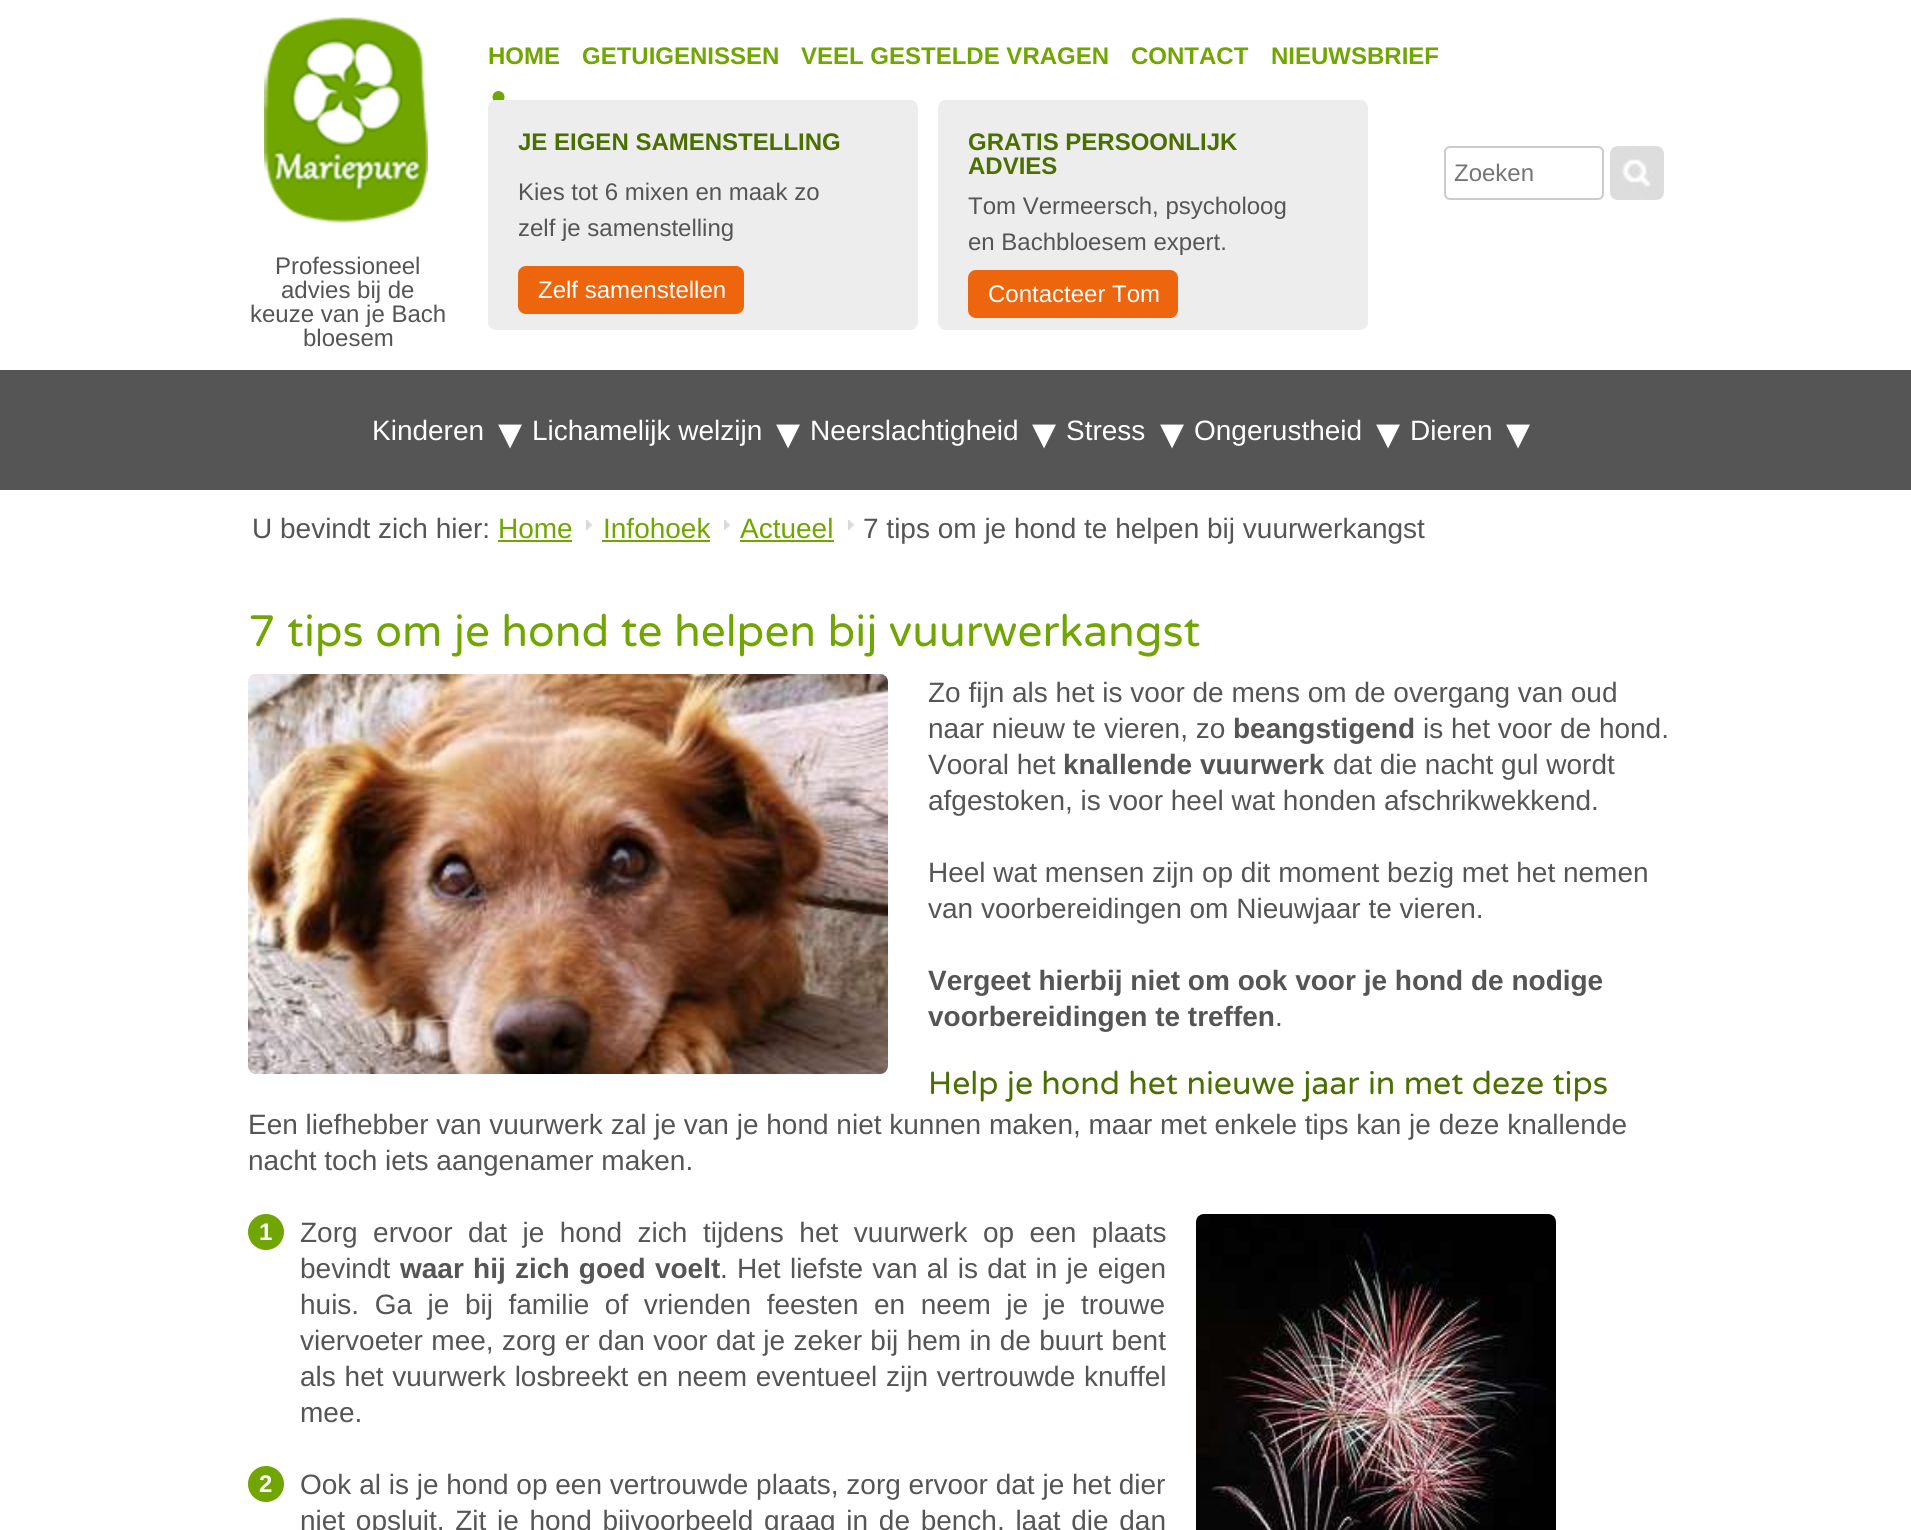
#include <cairo/cairo.h>
#include <math.h>
#include <stddef.h>

static cairo_t *cr;

static void use_color(int r, int g, int b) {
  cairo_set_source_rgb(cr, r / 255.0, g / 255.0, b / 255.0);
}

static void text(double x, double y, const char *s, const char *family, double size, int italic, int bold, int r, int g, int b) {
  cairo_select_font_face(cr, family, italic ? CAIRO_FONT_SLANT_ITALIC : CAIRO_FONT_SLANT_NORMAL,
    bold ? CAIRO_FONT_WEIGHT_BOLD : CAIRO_FONT_WEIGHT_NORMAL);
  cairo_set_font_size(cr, size);
  use_color(r, g, b);
  cairo_move_to(cr, x, y);
  cairo_show_text(cr, s);
}

static void spaced_text(double x, double y, const char *s, double letter, double word) {
  cairo_move_to(cr, x, y);
  while (*s) {
    char ch[5] = {0};
    int n = 0;
    do ch[n++] = *s++; while ((*s & 0xC0) == 0x80);
    cairo_show_text(cr, ch);
    cairo_rel_move_to(cr, letter + word * (*ch == ' '), 0);
  }
}

static void box(double x, double y, double w, double h, int r, int g, int b) {
  use_color(r, g, b);
  cairo_rectangle(cr, x, y, w, h);
  cairo_fill(cr);
}

static void round_rect(double x, double y, double w, double h, double r) {
  cairo_new_sub_path(cr);
  cairo_arc(cr, x + w - r, y + h - r, r, 0, M_PI / 2);
  cairo_arc(cr, x + r, y + h - r, r, M_PI / 2, M_PI);
  cairo_arc(cr, x + r, y + r, r, M_PI, 1.5 * M_PI);
  cairo_arc(cr, x + w - r, y + r, r, 1.5 * M_PI, 2 * M_PI);
  cairo_close_path(cr);
}

static void picture(const char *path, double x, double y, double w, double h) {
  cairo_surface_t *image = cairo_image_surface_create_from_png(path);
  cairo_save(cr);
  cairo_set_source_surface(cr, image, x, y);
  cairo_rectangle(cr, x, y, w, h);
  cairo_fill(cr);
  cairo_restore(cr);
  cairo_surface_destroy(image);
}

static void draw(void) {
  use_color(255, 255, 255);
  cairo_paint(cr);
  picture("img_01.png", 492, 91, 13, 10);
  round_rect(1445, 147, 158, 52, 5);
  use_color(204, 204, 204);
  cairo_stroke(cr);
  picture("img_02.png", 1610, 146, 54, 54);
  picture("img_03.png", 264, 17, 164, 206);
  use_color(237, 237, 237);
  round_rect(488, 100, 430, 230, 8);
  cairo_fill(cr);
  use_color(237, 102, 13);
  round_rect(518, 266, 226, 48, 8);
  cairo_fill(cr);
  use_color(237, 237, 237);
  round_rect(938, 100, 430, 230, 8);
  cairo_fill(cr);
  use_color(237, 102, 13);
  round_rect(968, 270, 210, 48, 8);
  cairo_fill(cr);
  box(0, 370, 1911, 120, 85, 85, 85);
  box(498, 540, 74, 2, 113, 165, 2);
  picture("img_04.png", 586, 520, 6, 10);
  box(602, 540, 108, 2, 113, 165, 2);
  picture("img_04.png", 724, 520, 6, 10);
  box(740, 540, 94, 2, 113, 165, 2);
  picture("img_04.png", 848, 520, 6, 10);
  picture("img_05.png", 248, 674, 640, 400);
  cairo_arc(cr, 266, 1232, 18, 0, 2 * M_PI);
  cairo_fill(cr);
  picture("img_06.png", 1196, 1214, 360, 316);
  cairo_arc(cr, 266, 1484, 18, 0, 2 * M_PI);
  cairo_fill(cr);
  text(488, 64, "HOME", "Liberation Sans", 24, 0, 1, 113, 165, 2);
  text(582, 64, "GETUIGENISSEN", "Liberation Sans", 24, 0, 1, 113, 165, 2);
  text(801, 64, "VEEL GESTELDE VRAGEN", "Liberation Sans", 24, 0, 1, 113, 165, 2);
  text(1131, 64, "CONTACT", "Liberation Sans", 24, 0, 1, 113, 165, 2);
  text(1271, 64, "NIEUWSBRIEF", "Liberation Sans", 24, 0, 1, 113, 165, 2);
  text(1454, 181, "Zoeken", "Liberation Sans", 24, 0, 0, 117, 117, 117);
  text(275, 274, "Professioneel", "Liberation Sans", 24, 0, 0, 85, 85, 85);
  text(281, 298, "advies bij de", "Liberation Sans", 24, 0, 0, 85, 85, 85);
  text(250, 322, "keuze van je Bach", "Liberation Sans", 24, 0, 0, 85, 85, 85);
  text(303, 346, "bloesem", "Liberation Sans", 24, 0, 0, 85, 85, 85);
  text(518, 150, "JE EIGEN SAMENSTELLING", "Liberation Sans", 24, 0, 1, 75, 110, 0);
  text(518, 200, "Kies tot 6 mixen en maak zo", "Liberation Sans", 24, 0, 0, 85, 85, 85);
  text(518, 236, "zelf je samenstelling", "Liberation Sans", 24, 0, 0, 85, 85, 85);
  text(538, 298, "Zelf samenstellen", "Liberation Sans", 24, 0, 0, 255, 255, 255);
  text(968, 150, "GRATIS PERSOONLIJK", "Liberation Sans", 24, 0, 1, 75, 110, 0);
  text(968, 174, "ADVIES", "Liberation Sans", 24, 0, 1, 75, 110, 0);
  text(968, 214, "Tom Vermeersch, psycholoog", "Liberation Sans", 24, 0, 0, 85, 85, 85);
  text(968, 250, "en Bachbloesem expert.", "Liberation Sans", 24, 0, 0, 85, 85, 85);
  text(988, 302, "Contacteer Tom", "Liberation Sans", 24, 0, 0, 255, 255, 255);
  text(372, 440, "Kinderen", "Liberation Sans", 28, 0, 0, 255, 255, 255);
  text(498, 449, "▾", "DejaVu Sans", 48, 0, 0, 255, 255, 255);
  text(532, 440, "Lichamelijk welzijn", "Liberation Sans", 28, 0, 0, 255, 255, 255);
  text(776, 449, "▾", "DejaVu Sans", 48, 0, 0, 255, 255, 255);
  text(810, 440, "Neerslachtigheid", "Liberation Sans", 28, 0, 0, 255, 255, 255);
  text(1032, 449, "▾", "DejaVu Sans", 48, 0, 0, 255, 255, 255);
  text(1066, 440, "Stress", "Liberation Sans", 28, 0, 0, 255, 255, 255);
  text(1160, 449, "▾", "DejaVu Sans", 48, 0, 0, 255, 255, 255);
  text(1194, 440, "Ongerustheid", "Liberation Sans", 28, 0, 0, 255, 255, 255);
  text(1376, 449, "▾", "DejaVu Sans", 48, 0, 0, 255, 255, 255);
  text(1410, 440, "Dieren", "Liberation Sans", 28, 0, 0, 255, 255, 255);
  text(1506, 449, "▾", "DejaVu Sans", 48, 0, 0, 255, 255, 255);
  text(252, 538, "U bevindt zich hier:", "Liberation Sans", 28, 0, 0, 85, 85, 85);
  text(498, 538, "Home", "Liberation Sans", 28, 0, 0, 113, 165, 2);
  text(603, 538, "Infohoek", "Liberation Sans", 28, 0, 0, 113, 165, 2);
  text(740, 538, "Actueel", "Liberation Sans", 28, 0, 0, 113, 165, 2);
  text(863, 538, "7 tips om je hond te helpen bij vuurwerkangst", "Liberation Sans", 28, 0, 0, 85, 85, 85);
  text(248, 646, "7 tips om je hond te helpen bij vuurwerkangst", "Varela Round", 44, 0, 0, 113, 165, 2);
  text(928, 702, "Zo fijn als het is voor de mens om de overgang van oud", "Liberation Sans", 28, 0, 0, 85, 85, 85);
  text(928, 738, "naar nieuw te vieren, zo", "Liberation Sans", 28, 0, 0, 85, 85, 85);
  text(1233, 738, "beangstigend", "Liberation Sans", 28, 0, 1, 85, 85, 85);
  text(1423, 738, "is het voor de hond.", "Liberation Sans", 28, 0, 0, 85, 85, 85);
  text(928, 774, "Vooral het", "Liberation Sans", 28, 0, 0, 85, 85, 85);
  text(1063, 774, "knallende vuurwerk", "Liberation Sans", 28, 0, 1, 85, 85, 85);
  text(1333, 774, "dat die nacht gul wordt", "Liberation Sans", 28, 0, 0, 85, 85, 85);
  text(928, 810, "afgestoken, is voor heel wat honden afschrikwekkend.", "Liberation Sans", 28, 0, 0, 85, 85, 85);
  text(928, 882, "Heel wat mensen zijn op dit moment bezig met het nemen", "Liberation Sans", 28, 0, 0, 85, 85, 85);
  text(928, 918, "van voorbereidingen om Nieuwjaar te vieren.", "Liberation Sans", 28, 0, 0, 85, 85, 85);
  text(928, 990, "Vergeet hierbij niet om ook voor je hond de nodige", "Liberation Sans", 28, 0, 1, 85, 85, 85);
  text(928, 1026, "voorbereidingen te treffen", "Liberation Sans", 28, 0, 1, 85, 85, 85);
  text(1275, 1026, ".", "Liberation Sans", 28, 0, 0, 85, 85, 85);
  text(928, 1094, "Help je hond het nieuwe jaar in met deze tips", "Varela Round", 32, 0, 0, 75, 110, 0);
  text(248, 1134, "Een liefhebber van vuurwerk zal je van je hond niet kunnen maken, maar met enkele tips kan je deze knallende", "Liberation Sans", 28, 0, 0, 85, 85, 85);
  text(248, 1170, "nacht toch iets aangenamer maken.", "Liberation Sans", 28, 0, 0, 85, 85, 85);
  text(259, 1240, "1", "Liberation Sans", 24, 0, 1, 255, 255, 255);
  cairo_select_font_face(cr, "Liberation Sans", CAIRO_FONT_SLANT_NORMAL, CAIRO_FONT_WEIGHT_NORMAL);
  cairo_set_font_size(cr, 28);
  use_color(85, 85, 85);
  spaced_text(300, 1242, "Zorg ervoor dat je hond zich tijdens het vuurwerk op een plaats", 0, 7.75);
  text(300, 1278, "bevindt", "Liberation Sans", 28, 0, 0, 85, 85, 85);
  cairo_select_font_face(cr, "Liberation Sans", CAIRO_FONT_SLANT_NORMAL, CAIRO_FONT_WEIGHT_BOLD);
  spaced_text(400, 1278, "waar hij zich goed voelt", 0, 1.5);
  cairo_select_font_face(cr, "Liberation Sans", CAIRO_FONT_SLANT_NORMAL, CAIRO_FONT_WEIGHT_NORMAL);
  spaced_text(720, 1278, ". Het liefste van al is dat in je eigen", 0, 1.5);
  spaced_text(300, 1314, "huis. Ga je bij familie of vrienden feesten en neem je je trouwe", 0, 7.75);
  spaced_text(300, 1350, "viervoeter mee, zorg er dan voor dat je zeker bij hem in de buurt bent", 0, 0.6);
  spaced_text(300, 1386, "als het vuurwerk losbreekt en neem eventueel zijn vertrouwde knuffel", 0, 1);
  text(300, 1422, "mee.", "Liberation Sans", 28, 0, 0, 85, 85, 85);
  text(259, 1492, "2", "Liberation Sans", 24, 0, 1, 255, 255, 255);
  text(300, 1494, "Ook al is je hond op een vertrouwde plaats, zorg ervoor dat je het dier", "Liberation Sans", 28, 0, 0, 85, 85, 85);
  spaced_text(300, 1530, "niet opsluit. Zit je hond bijvoorbeeld graag in de bench, laat die dan", 0, 2.9);
}

int main(void) {
  cairo_surface_t *surface = cairo_image_surface_create(CAIRO_FORMAT_RGB24, 1911, 1530);
  cr = cairo_create(surface);
  cairo_font_options_t *options = cairo_font_options_create();
  cairo_font_options_set_hint_metrics(options, CAIRO_HINT_METRICS_OFF);
  cairo_font_options_set_hint_style(options, CAIRO_HINT_STYLE_NONE);
  cairo_set_font_options(cr, options);
  cairo_set_miter_limit(cr, 4);
  draw();
  cairo_surface_write_to_png(surface, "out.png");
  cairo_font_options_destroy(options);
  cairo_destroy(cr);
  cairo_surface_destroy(surface);
  return 0;
}
